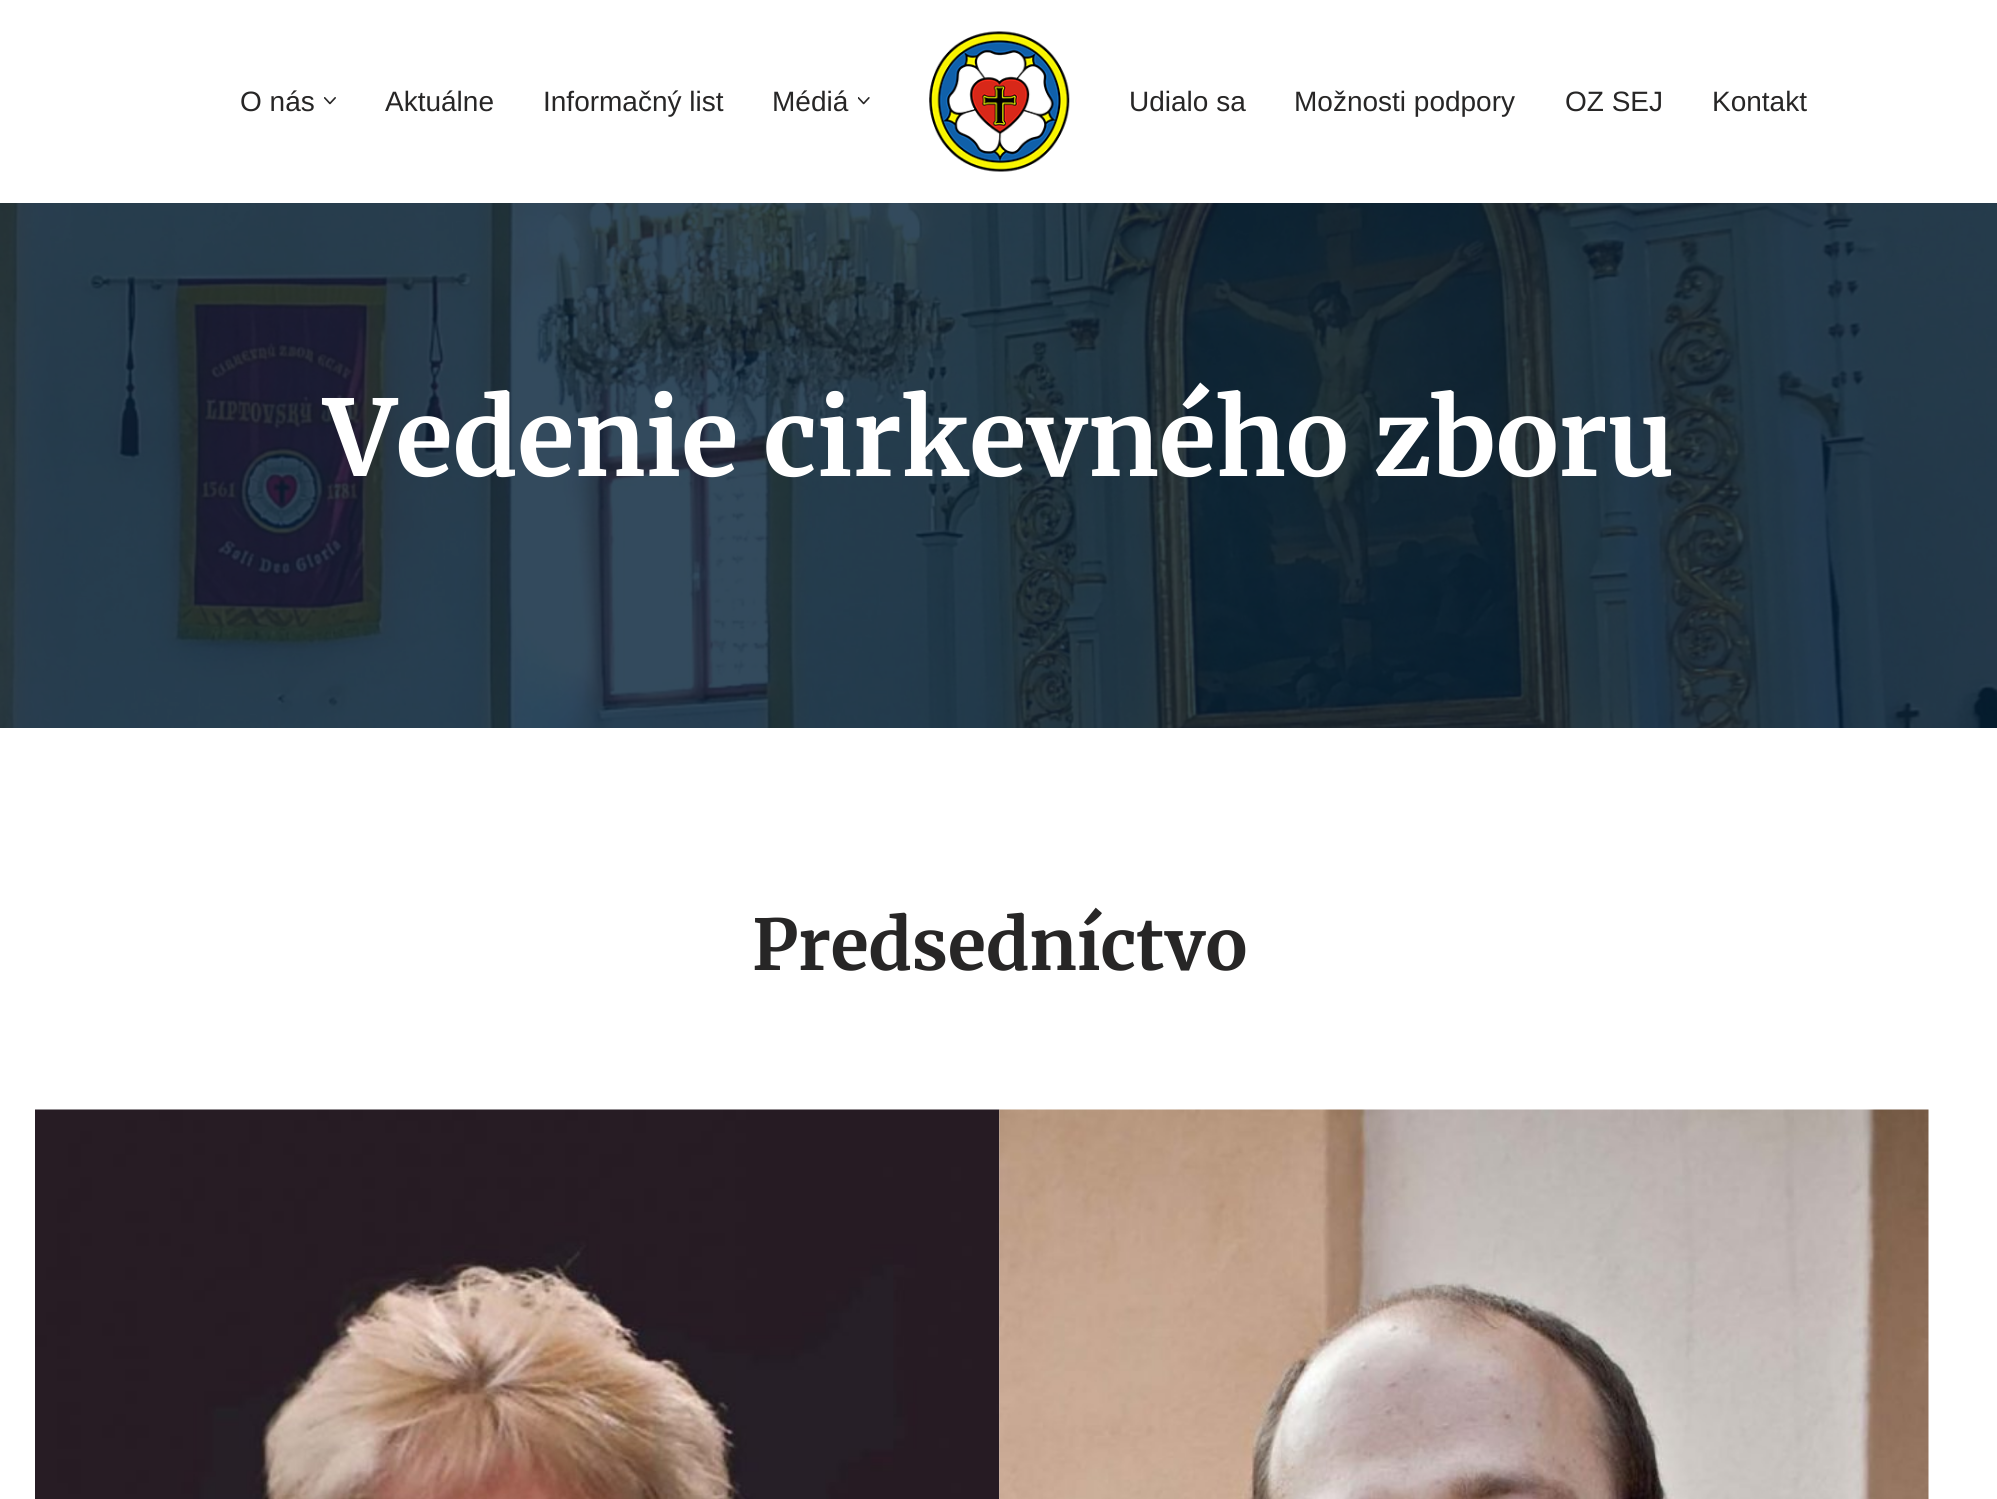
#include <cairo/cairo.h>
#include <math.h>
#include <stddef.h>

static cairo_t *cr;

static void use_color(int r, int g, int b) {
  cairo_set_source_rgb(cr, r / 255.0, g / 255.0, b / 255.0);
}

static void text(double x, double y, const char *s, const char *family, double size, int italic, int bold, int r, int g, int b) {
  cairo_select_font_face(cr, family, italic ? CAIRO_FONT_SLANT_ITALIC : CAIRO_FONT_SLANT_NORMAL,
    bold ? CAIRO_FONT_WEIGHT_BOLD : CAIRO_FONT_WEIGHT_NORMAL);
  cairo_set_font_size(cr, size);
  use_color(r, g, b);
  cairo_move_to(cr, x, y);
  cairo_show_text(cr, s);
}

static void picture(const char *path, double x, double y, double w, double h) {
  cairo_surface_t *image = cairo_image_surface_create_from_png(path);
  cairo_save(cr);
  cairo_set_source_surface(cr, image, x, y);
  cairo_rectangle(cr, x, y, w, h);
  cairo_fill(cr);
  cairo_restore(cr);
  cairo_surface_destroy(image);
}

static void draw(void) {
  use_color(255, 255, 255);
  cairo_paint(cr);
  picture("img_01.png", 324, 97, 12, 8);
  picture("img_02.png", 858, 97, 12, 8);
  picture("img_03.png", 929, 31, 141, 141);
  picture("img_04.png", 0, 203, 1997, 525);
  picture("img_05.png", 35, 1109, 965, 390);
  picture("img_06.png", 999, 1109, 930, 390);
  text(240, 111, "O nás", "Liberation Sans", 28, 0, 0, 39, 38, 38);
  text(385, 111, "Aktuálne", "Liberation Sans", 28, 0, 0, 39, 38, 38);
  text(543, 111, "Informačný list", "Liberation Sans", 28, 0, 0, 39, 38, 38);
  text(772, 111, "Médiá", "Liberation Sans", 28, 0, 0, 39, 38, 38);
  text(1129, 111, "Udialo sa", "Liberation Sans", 28, 0, 0, 39, 38, 38);
  text(1294, 111, "Možnosti podpory", "Liberation Sans", 28, 0, 0, 39, 38, 38);
  text(1565, 111, "OZ SEJ", "Liberation Sans", 28, 0, 0, 39, 38, 38);
  text(1712, 111, "Kontakt", "Liberation Sans", 28, 0, 0, 39, 38, 38);
  text(324, 476, "Vedenie cirkevného zboru", "Merriweather", 105, 0, 1, 255, 255, 255);
  text(752, 970, "Predsedníctvo", "Merriweather", 70, 0, 1, 39, 38, 38);
}

int main(void) {
  cairo_surface_t *surface = cairo_image_surface_create(CAIRO_FORMAT_RGB24, 1997, 1499);
  cr = cairo_create(surface);
  cairo_font_options_t *options = cairo_font_options_create();
  cairo_font_options_set_hint_metrics(options, CAIRO_HINT_METRICS_OFF);
  cairo_font_options_set_hint_style(options, CAIRO_HINT_STYLE_NONE);
  cairo_set_font_options(cr, options);
  cairo_set_miter_limit(cr, 4);
  draw();
  cairo_surface_write_to_png(surface, "out.png");
  cairo_font_options_destroy(options);
  cairo_destroy(cr);
  cairo_surface_destroy(surface);
  return 0;
}
